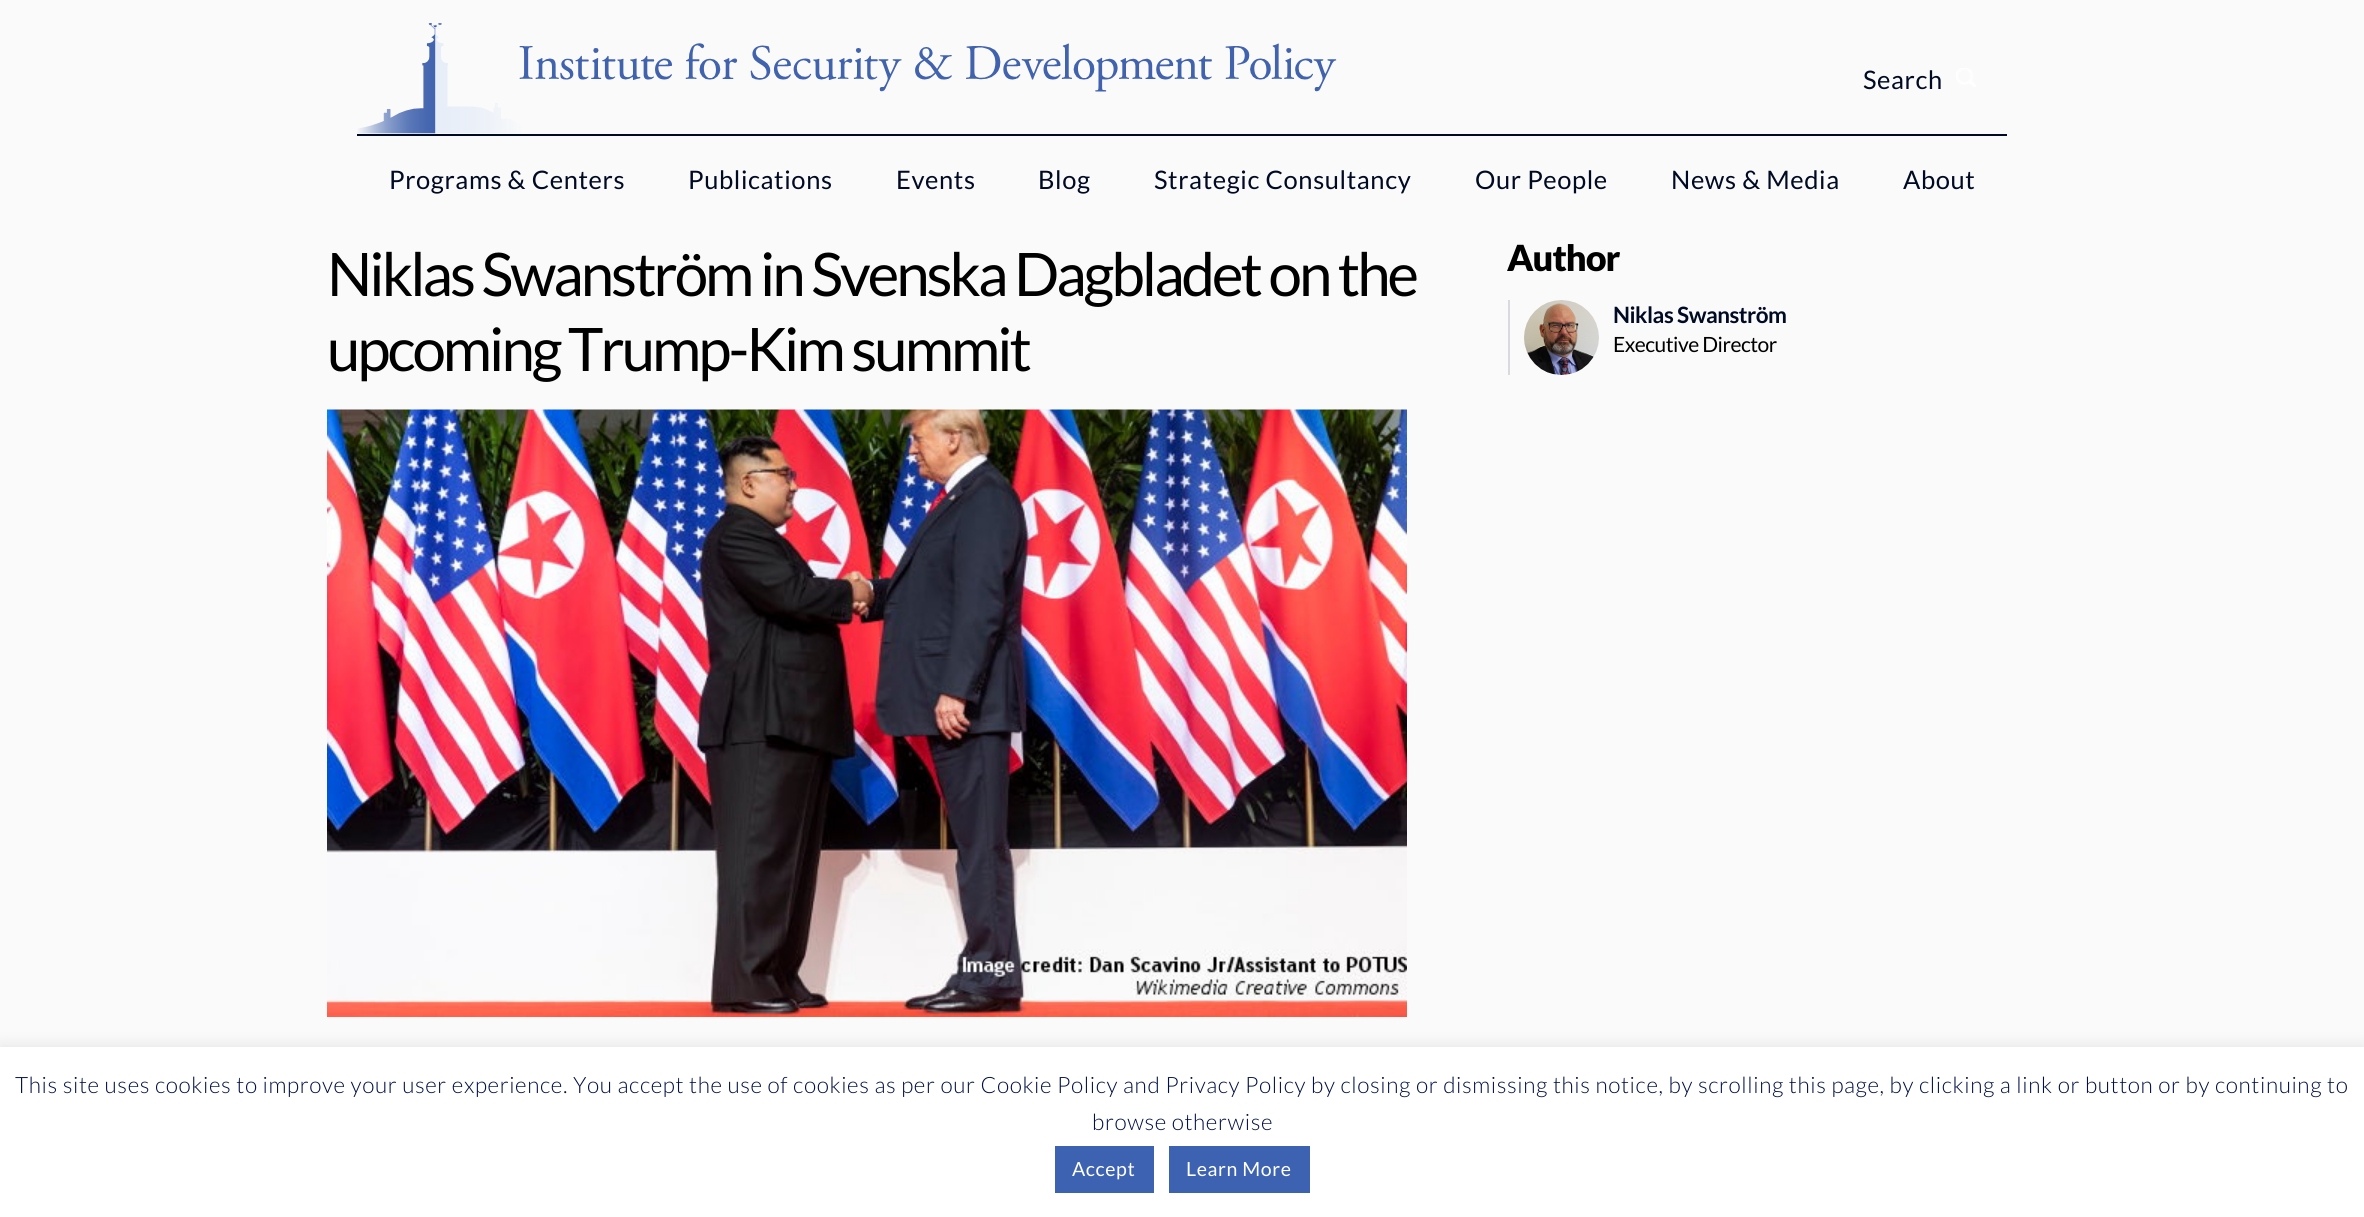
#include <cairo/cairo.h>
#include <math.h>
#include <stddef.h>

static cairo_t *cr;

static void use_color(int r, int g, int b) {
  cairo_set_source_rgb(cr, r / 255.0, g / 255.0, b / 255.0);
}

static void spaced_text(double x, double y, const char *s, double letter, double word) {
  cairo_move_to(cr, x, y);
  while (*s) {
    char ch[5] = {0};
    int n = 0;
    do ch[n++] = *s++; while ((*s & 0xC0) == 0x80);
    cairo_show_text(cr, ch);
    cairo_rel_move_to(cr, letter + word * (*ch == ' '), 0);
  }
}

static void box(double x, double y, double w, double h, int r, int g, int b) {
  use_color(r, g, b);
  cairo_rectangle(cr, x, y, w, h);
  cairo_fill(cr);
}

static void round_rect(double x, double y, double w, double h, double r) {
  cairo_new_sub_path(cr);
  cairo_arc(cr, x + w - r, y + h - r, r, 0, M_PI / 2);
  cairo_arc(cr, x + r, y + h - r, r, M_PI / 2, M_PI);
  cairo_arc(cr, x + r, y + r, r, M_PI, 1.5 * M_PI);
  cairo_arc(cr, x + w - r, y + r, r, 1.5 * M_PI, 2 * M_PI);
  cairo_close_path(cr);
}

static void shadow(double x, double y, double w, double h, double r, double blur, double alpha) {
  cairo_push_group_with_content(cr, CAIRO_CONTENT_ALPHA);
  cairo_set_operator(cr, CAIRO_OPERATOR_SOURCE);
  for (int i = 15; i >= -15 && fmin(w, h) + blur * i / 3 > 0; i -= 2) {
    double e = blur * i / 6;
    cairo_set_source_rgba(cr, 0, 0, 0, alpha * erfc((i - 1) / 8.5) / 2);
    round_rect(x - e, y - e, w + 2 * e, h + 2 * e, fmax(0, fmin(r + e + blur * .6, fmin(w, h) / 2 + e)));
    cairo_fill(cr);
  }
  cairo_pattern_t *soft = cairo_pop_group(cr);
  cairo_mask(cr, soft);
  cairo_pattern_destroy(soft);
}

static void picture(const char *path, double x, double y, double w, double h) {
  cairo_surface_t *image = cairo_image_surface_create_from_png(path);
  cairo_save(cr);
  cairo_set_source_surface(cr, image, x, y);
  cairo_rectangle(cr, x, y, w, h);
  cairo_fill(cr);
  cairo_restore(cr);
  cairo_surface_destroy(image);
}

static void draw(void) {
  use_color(250, 250, 250);
  cairo_paint(cr);
  box(357, 134, 1650, 2, 0, 10, 35);
  picture("img_01.png", 357, 23, 980, 111);
  picture("img_02.png", 1956, 68, 20, 19);
  picture("img_03.png", 327, 409, 1080, 608);
  box(1508, 300, 2, 75, 217, 218, 222);
  picture("img_04.png", 1524, 300, 75, 75);
  use_color(172, 171, 171);
  shadow(0, 1046, 2364, 171, 0, 7.5, 0.3);
  box(0, 1047, 2364, 170, 255, 255, 255);
  box(1055, 1146, 99, 47, 62, 98, 178);
  box(1169, 1146, 141, 47, 62, 98, 178);
  cairo_select_font_face(cr, "Lato", CAIRO_FONT_SLANT_NORMAL, CAIRO_FONT_WEIGHT_NORMAL);
  cairo_set_font_size(cr, 25.5);
  use_color(0, 10, 35);
  spaced_text(1863, 89, "Search", 0.6, 0);
  spaced_text(389, 189, "Programs & Centers", 0.6, 0);
  spaced_text(688, 189, "Publications", 0.6, 0);
  spaced_text(896, 189, "Events", 0.6, 0);
  spaced_text(1038, 189, "Blog", 0.6, 0);
  spaced_text(1154, 189, "Strategic Consultancy", 0.6, 0);
  spaced_text(1475, 189, "Our People", 0.6, 0);
  spaced_text(1671, 189, "News & Media", 0.6, 0);
  spaced_text(1903, 189, "About", 0.6, 0);
  cairo_set_font_size(cr, 60);
  use_color(0, 0, 0);
  spaced_text(327, 296, "Niklas Swanström in Svenska Dagbladet on the", -3, 0);
  spaced_text(327, 371, "upcoming Trump-Kim summit", -3, 0);
  cairo_select_font_face(cr, "Lato Black", CAIRO_FONT_SLANT_NORMAL, CAIRO_FONT_WEIGHT_NORMAL);
  cairo_set_font_size(cr, 36);
  spaced_text(1507, 271, "Author", -1, 0);
  cairo_select_font_face(cr, "Lato", CAIRO_FONT_SLANT_NORMAL, CAIRO_FONT_WEIGHT_BOLD);
  cairo_set_font_size(cr, 22.5);
  use_color(0, 10, 35);
  spaced_text(1613, 323, "Niklas Swanström", -0.5, 0);
  cairo_select_font_face(cr, "Lato", CAIRO_FONT_SLANT_NORMAL, CAIRO_FONT_WEIGHT_NORMAL);
  cairo_set_font_size(cr, 21);
  use_color(0, 0, 0);
  spaced_text(1613, 352, "Executive Director", -0.5, 0);
  cairo_select_font_face(cr, "Lato Light", CAIRO_FONT_SLANT_NORMAL, CAIRO_FONT_WEIGHT_NORMAL);
  cairo_set_font_size(cr, 22.5);
  use_color(0, 15, 70);
  spaced_text(15, 1093, "This site uses cookies to improve your user experience. You accept the use of cookies as per our Cookie Policy and Privacy Policy by closing or dismissing this notice, by scrolling this page, by clicking a link or button or by continuing to", 0.6, 0);
  spaced_text(1092, 1130, "browse otherwise", 0.6, 0);
  cairo_select_font_face(cr, "Lato", CAIRO_FONT_SLANT_NORMAL, CAIRO_FONT_WEIGHT_NORMAL);
  cairo_set_font_size(cr, 19.5);
  use_color(255, 255, 255);
  spaced_text(1072, 1176, "Accept", 0.6, 0);
  spaced_text(1186, 1176, "Learn More", 0.6, 0);
}

int main(void) {
  cairo_surface_t *surface = cairo_image_surface_create(CAIRO_FORMAT_RGB24, 2364, 1217);
  cr = cairo_create(surface);
  cairo_font_options_t *options = cairo_font_options_create();
  cairo_font_options_set_hint_metrics(options, CAIRO_HINT_METRICS_OFF);
  cairo_font_options_set_hint_style(options, CAIRO_HINT_STYLE_NONE);
  cairo_set_font_options(cr, options);
  cairo_set_miter_limit(cr, 4);
  draw();
  cairo_surface_write_to_png(surface, "out.png");
  cairo_font_options_destroy(options);
  cairo_destroy(cr);
  cairo_surface_destroy(surface);
  return 0;
}
